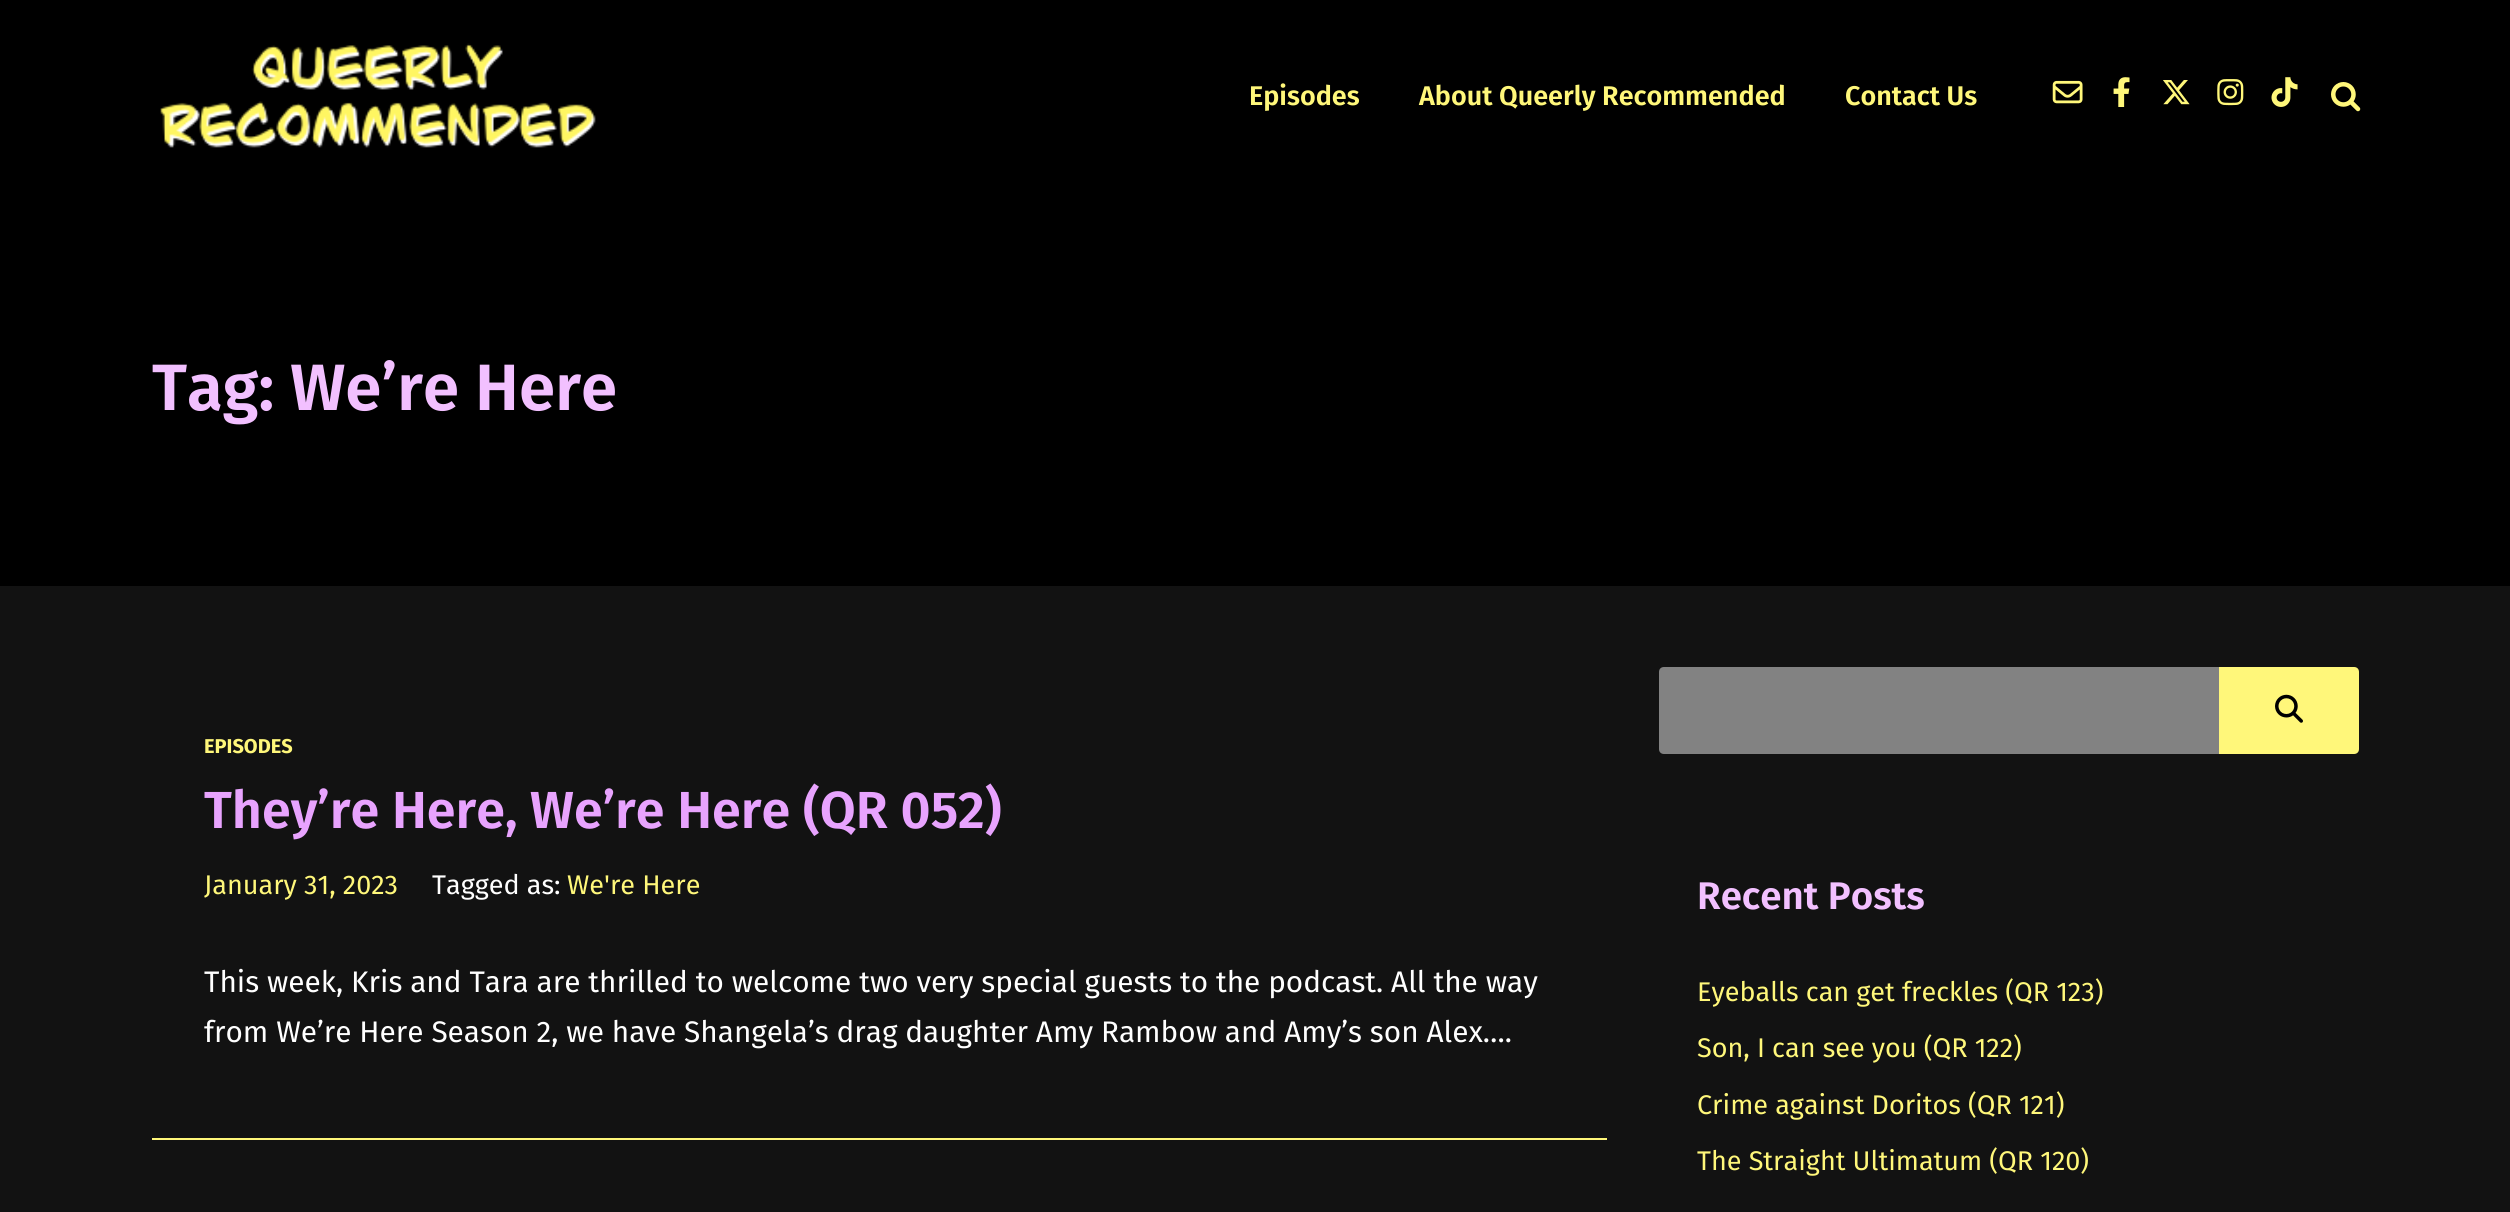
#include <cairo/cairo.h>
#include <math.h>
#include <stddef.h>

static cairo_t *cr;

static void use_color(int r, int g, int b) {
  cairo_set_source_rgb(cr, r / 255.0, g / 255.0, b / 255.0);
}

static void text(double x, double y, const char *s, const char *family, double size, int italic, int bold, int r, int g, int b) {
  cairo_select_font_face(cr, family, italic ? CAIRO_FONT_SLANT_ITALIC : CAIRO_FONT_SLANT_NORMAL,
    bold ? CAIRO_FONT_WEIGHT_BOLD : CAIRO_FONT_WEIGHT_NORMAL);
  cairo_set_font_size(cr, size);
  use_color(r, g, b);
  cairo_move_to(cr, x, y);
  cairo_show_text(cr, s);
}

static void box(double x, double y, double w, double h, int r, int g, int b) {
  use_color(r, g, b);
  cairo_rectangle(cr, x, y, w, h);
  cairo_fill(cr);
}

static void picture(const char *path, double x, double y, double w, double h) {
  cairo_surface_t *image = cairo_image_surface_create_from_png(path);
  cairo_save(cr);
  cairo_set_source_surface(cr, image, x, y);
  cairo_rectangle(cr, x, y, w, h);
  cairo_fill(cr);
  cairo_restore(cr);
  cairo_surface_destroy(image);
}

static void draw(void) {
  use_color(18, 18, 18);
  cairo_paint(cr);
  box(0, 0, 2510, 586, 0, 0, 0);
  picture("img_01.png", 160, 43, 436, 105);
  picture("img_02.png", 2052, 80, 31, 24);
  picture("img_03.png", 2113, 77, 17, 30);
  picture("img_04.png", 2163, 80, 27, 25);
  picture("img_05.png", 2217, 79, 27, 27);
  picture("img_06.png", 2271, 77, 27, 30);
  picture("img_07.png", 2331, 82, 30, 30);
  box(152, 1138, 1455, 2, 255, 247, 122);
  use_color(130, 130, 130);
  cairo_new_path(cr);
  cairo_move_to(cr, 1664, 667);
  cairo_line_to(cr, 2219, 667);
  cairo_line_to(cr, 2219, 754);
  cairo_line_to(cr, 1664, 754);
  cairo_curve_to(cr, 1661, 754, 1659, 752, 1659, 749);
  cairo_line_to(cr, 1659, 672);
  cairo_curve_to(cr, 1659, 669, 1661, 667, 1664, 667);
  cairo_close_path(cr);
  cairo_fill(cr);
  use_color(255, 247, 122);
  cairo_new_path(cr);
  cairo_move_to(cr, 2219, 667);
  cairo_line_to(cr, 2354, 667);
  cairo_curve_to(cr, 2357, 667, 2359, 669, 2359, 672);
  cairo_line_to(cr, 2359, 749);
  cairo_curve_to(cr, 2359, 752, 2357, 754, 2354, 754);
  cairo_line_to(cr, 2219, 754);
  cairo_close_path(cr);
  cairo_fill(cr);
  picture("img_08.png", 2275, 694, 28, 29);
  text(1249, 105, "Episodes", "Fira Sans SemiBold", 27, 0, 0, 255, 247, 122);
  text(1419, 105, "About Queerly Recommended", "Fira Sans SemiBold", 27, 0, 0, 255, 247, 122);
  text(1845, 105, "Contact Us", "Fira Sans SemiBold", 27, 0, 0, 255, 247, 122);
  text(152, 410, "Tag: We’re Here", "Fira Sans SemiBold", 65.5, 0, 0, 242, 192, 255);
  text(204, 753, "EPISODES", "Fira Sans", 20, 0, 1, 255, 247, 122);
  text(204, 828, "They’re Here, We’re Here (QR 052)", "Fira Sans SemiBold", 52.1, 0, 0, 232, 163, 254);
  text(204, 894, "January 31, 2023", "Fira Sans", 27, 0, 0, 255, 247, 122);
  text(432, 894, "Tagged as:", "Fira Sans", 27, 0, 0, 255, 255, 255);
  text(567, 894, "We're Here", "Fira Sans", 27, 0, 0, 255, 247, 122);
  text(204, 992, "This week, Kris and Tara are thrilled to welcome two very special guests to the podcast. All the way", "Fira Sans", 29.75, 0, 0, 255, 255, 255);
  text(204, 1042, "from We’re Here Season 2, we have Shangela’s drag daughter Amy Rambow and Amy’s son Alex….", "Fira Sans", 29.75, 0, 0, 255, 255, 255);
  text(1697, 909, "Recent Posts", "Fira Sans SemiBold", 38.5, 0, 0, 242, 192, 255);
  text(1697, 1001, "Eyeballs can get freckles (QR 123)", "Fira Sans", 27, 0, 0, 255, 247, 122);
  text(1697, 1057, "Son, I can see you (QR 122)", "Fira Sans", 27, 0, 0, 255, 247, 122);
  text(1697, 1114, "Crime against Doritos (QR 121)", "Fira Sans", 27, 0, 0, 255, 247, 122);
  text(1697, 1170, "The Straight Ultimatum (QR 120)", "Fira Sans", 27, 0, 0, 255, 247, 122);
}

int main(void) {
  cairo_surface_t *surface = cairo_image_surface_create(CAIRO_FORMAT_RGB24, 2510, 1212);
  cr = cairo_create(surface);
  cairo_font_options_t *options = cairo_font_options_create();
  cairo_font_options_set_hint_metrics(options, CAIRO_HINT_METRICS_OFF);
  cairo_font_options_set_hint_style(options, CAIRO_HINT_STYLE_NONE);
  cairo_set_font_options(cr, options);
  cairo_set_miter_limit(cr, 4);
  draw();
  cairo_surface_write_to_png(surface, "out.png");
  cairo_font_options_destroy(options);
  cairo_destroy(cr);
  cairo_surface_destroy(surface);
  return 0;
}
